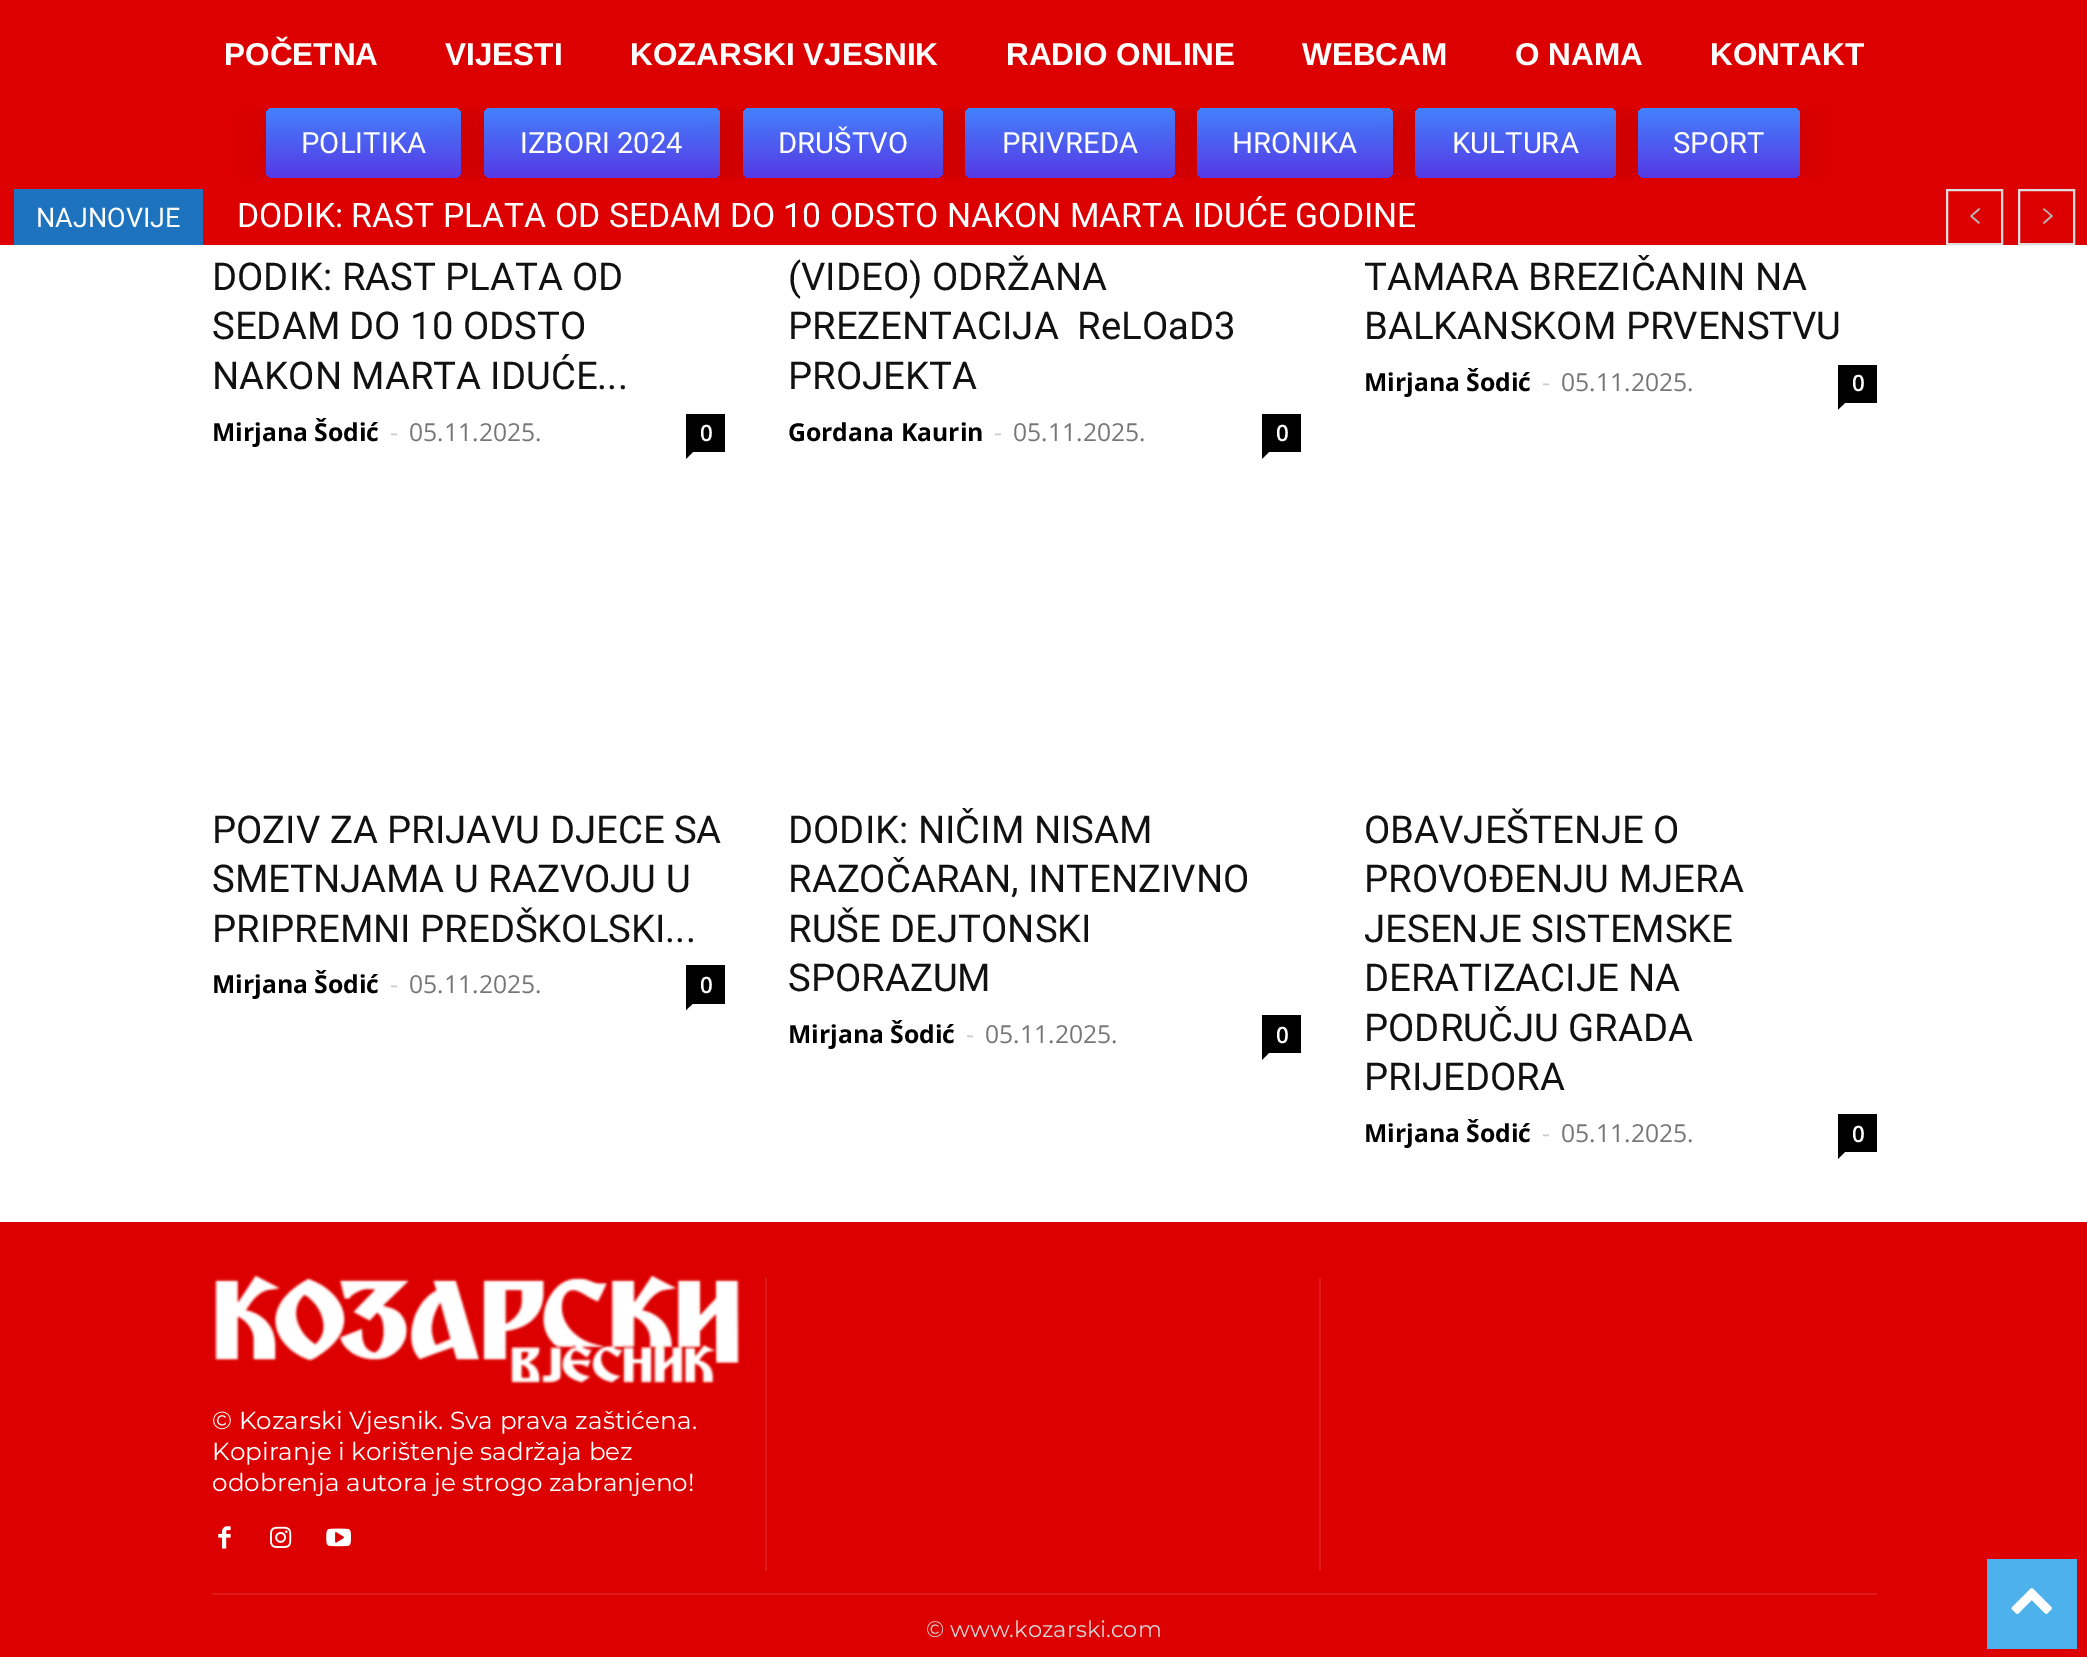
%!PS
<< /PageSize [2087 1657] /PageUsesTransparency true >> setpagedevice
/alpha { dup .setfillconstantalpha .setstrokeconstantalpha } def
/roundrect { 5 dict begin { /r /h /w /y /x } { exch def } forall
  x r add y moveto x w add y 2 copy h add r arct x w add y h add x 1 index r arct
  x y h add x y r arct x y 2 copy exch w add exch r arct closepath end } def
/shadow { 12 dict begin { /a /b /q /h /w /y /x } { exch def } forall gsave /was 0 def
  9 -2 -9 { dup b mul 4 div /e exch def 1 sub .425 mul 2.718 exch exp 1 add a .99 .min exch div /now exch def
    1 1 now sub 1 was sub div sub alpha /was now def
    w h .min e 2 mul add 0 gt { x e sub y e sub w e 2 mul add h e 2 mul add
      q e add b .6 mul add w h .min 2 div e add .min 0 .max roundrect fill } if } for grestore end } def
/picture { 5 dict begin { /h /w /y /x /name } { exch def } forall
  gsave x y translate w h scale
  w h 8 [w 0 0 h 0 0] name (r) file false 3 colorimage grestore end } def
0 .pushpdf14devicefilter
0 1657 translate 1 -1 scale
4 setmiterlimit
1 setgray
0 0 2087 1657 rectfill
0.867 0 0 setrgbcolor
0 108 2087 70 rectfill
0 setgray
266 113 195 69 7 18 0.1 shadow
gsave 266 108 195 70 7 roundrect clip newpath
<< /ShadingType 2 /ColorSpace /DeviceRGB /Coords [363 108 363 178] /Extend [true true] /Function << /FunctionType 2 /Domain [0 1] /C0 [0.267 0.506 0.988] /C1 [0.337 0.224 0.898] /N 1 >> >> shfill grestore
484 113 236 69 7 18 0.1 shadow
gsave 484 108 236 70 7 roundrect clip newpath
<< /ShadingType 2 /ColorSpace /DeviceRGB /Coords [602 108 602 178] /Extend [true true] /Function << /FunctionType 2 /Domain [0 1] /C0 [0.267 0.506 0.988] /C1 [0.337 0.224 0.898] /N 1 >> >> shfill grestore
743 113 200 69 7 18 0.1 shadow
gsave 743 108 200 70 7 roundrect clip newpath
<< /ShadingType 2 /ColorSpace /DeviceRGB /Coords [843 108 843 178] /Extend [true true] /Function << /FunctionType 2 /Domain [0 1] /C0 [0.267 0.506 0.988] /C1 [0.337 0.224 0.898] /N 1 >> >> shfill grestore
965 113 210 69 7 18 0.1 shadow
gsave 965 108 210 70 7 roundrect clip newpath
<< /ShadingType 2 /ColorSpace /DeviceRGB /Coords [1070 108 1070 178] /Extend [true true] /Function << /FunctionType 2 /Domain [0 1] /C0 [0.267 0.506 0.988] /C1 [0.337 0.224 0.898] /N 1 >> >> shfill grestore
1197 113 196 69 7 18 0.1 shadow
gsave 1197 108 196 70 7 roundrect clip newpath
<< /ShadingType 2 /ColorSpace /DeviceRGB /Coords [1295 108 1295 178] /Extend [true true] /Function << /FunctionType 2 /Domain [0 1] /C0 [0.267 0.506 0.988] /C1 [0.337 0.224 0.898] /N 1 >> >> shfill grestore
1415 113 201 69 7 18 0.1 shadow
gsave 1415 108 201 70 7 roundrect clip newpath
<< /ShadingType 2 /ColorSpace /DeviceRGB /Coords [1515 108 1515 178] /Extend [true true] /Function << /FunctionType 2 /Domain [0 1] /C0 [0.267 0.506 0.988] /C1 [0.337 0.224 0.898] /N 1 >> >> shfill grestore
1638 113 162 69 7 18 0.1 shadow
0.867 0 0 setrgbcolor
0 0 2087 108 rectfill
/LiberationSans-Bold [31.5 0 0 -31.5 0 0] selectfont
1 setgray
224 65 moveto (POČETNA) show
445 65 moveto (VIJESTI) show
630 65 moveto (KOZARSKI VJESNIK) show
1006 65 moveto (RADIO ONLINE) show
1302 65 moveto (WEBCAM) show
1515 65 moveto (O NAMA) show
1710 65 moveto (KONTAKT) show
/Roboto-Regular [29.25 0 0 -29.25 0 0] selectfont
301 153 moveto (POLITIKA) show
520 153 moveto (IZBORI 2024) show
778 153 moveto (DRUŠTVO) show
1002 153 moveto (PRIVREDA) show
1232 153 moveto (HRONIKA) show
1452 153 moveto (KULTURA) show
gsave 1638 108 162 70 7 roundrect clip newpath
<< /ShadingType 2 /ColorSpace /DeviceRGB /Coords [1719 108 1719 178] /Extend [true true] /Function << /FunctionType 2 /Domain [0 1] /C0 [0.267 0.506 0.988] /C1 [0.337 0.224 0.898] /N 1 >> >> shfill grestore
1673 153 moveto (SPORT) show
0.867 0 0 setrgbcolor
0 178 2087 67 rectfill
0.118 0.451 0.745 setrgbcolor
14 189 189 56 rectfill
/Roboto-Regular [27 0 0 -27 0 0] selectfont
1 setgray
36 227 moveto (NAJNOVIJE) show
/Roboto-Regular [33.75 0 0 -33.75 0 0] selectfont
237 227 moveto (DODIK: RAST PLATA OD SEDAM DO 10 ODSTO NAKON MARTA IDUĆE GODINE) show
0.863 setgray
2 setlinewidth
1947 190 55 54 rectstroke
(img1.rgb) 1970 208 10 16 picture
2019 190 55 54 rectstroke
(img2.rgb) 2043 208 10 16 picture
/Roboto-Regular [38.25 0 0 -38.25 0 0] selectfont
0.067 setgray
212 290 moveto (DODIK: RAST PLATA OD) show
212 339 moveto (SEDAM DO 10 ODSTO) show
212 389 moveto (NAKON MARTA IDUĆE...) show
/OpenSans-Bold [24.75 0 0 -24.75 0 0] selectfont
0 setgray
212 441 moveto (Mirjana Šodić) show
/OpenSans-Regular [24.75 0 0 -24.75 0 0] selectfont
0.8 setgray
390 441 moveto (-) show
0.463 setgray
409 441 moveto (05.11.2025.) show
0 setgray
686 414 39 38 rectfill
/OpenSans-SemiBold [22.5 0 0 -22.5 0 0] selectfont
1 setgray
700 441 moveto (0) show
0 setgray
newpath 686 452 moveto 693 452 lineto 686 459 lineto closepath fill
/Roboto-Regular [38.25 0 0 -38.25 0 0] selectfont
0.067 setgray
788 290 moveto (\(VIDEO\) ODRŽANA) show
788 339 moveto (PREZENTACIJA  ReLOaD3) show
788 389 moveto (PROJEKTA) show
/OpenSans-Bold [24.75 0 0 -24.75 0 0] selectfont
0 setgray
788 441 moveto (Gordana Kaurin) show
/OpenSans-Regular [24.75 0 0 -24.75 0 0] selectfont
0.8 setgray
994 441 moveto (-) show
0.463 setgray
1013 441 moveto (05.11.2025.) show
0 setgray
1262 414 39 38 rectfill
/OpenSans-SemiBold [22.5 0 0 -22.5 0 0] selectfont
1 setgray
1276 441 moveto (0) show
0 setgray
newpath 1262 452 moveto 1269 452 lineto 1262 459 lineto closepath fill
/Roboto-Regular [38.25 0 0 -38.25 0 0] selectfont
0.067 setgray
1364 290 moveto (TAMARA BREZIČANIN NA) show
1364 339 moveto (BALKANSKOM PRVENSTVU) show
/OpenSans-Bold [24.75 0 0 -24.75 0 0] selectfont
0 setgray
1364 391 moveto (Mirjana Šodić) show
/OpenSans-Regular [24.75 0 0 -24.75 0 0] selectfont
0.8 setgray
1542 391 moveto (-) show
0.463 setgray
1561 391 moveto (05.11.2025.) show
0 setgray
1838 365 39 38 rectfill
/OpenSans-SemiBold [22.5 0 0 -22.5 0 0] selectfont
1 setgray
1852 391 moveto (0) show
0 setgray
newpath 1838 403 moveto 1845 403 lineto 1838 409.5 lineto closepath fill
/Roboto-Regular [38.25 0 0 -38.25 0 0] selectfont
0.067 setgray
212 843 moveto (POZIV ZA PRIJAVU DJECE SA) show
212 892 moveto (SMETNJAMA U RAZVOJU U) show
212 942 moveto (PRIPREMNI PREDŠKOLSKI...) show
/OpenSans-Bold [24.75 0 0 -24.75 0 0] selectfont
0 setgray
212 993 moveto (Mirjana Šodić) show
/OpenSans-Regular [24.75 0 0 -24.75 0 0] selectfont
0.8 setgray
390 993 moveto (-) show
0.463 setgray
409 993 moveto (05.11.2025.) show
0 setgray
686 965 39 39 rectfill
/OpenSans-SemiBold [22.5 0 0 -22.5 0 0] selectfont
1 setgray
700 993 moveto (0) show
0 setgray
newpath 686 1003.5 moveto 693 1003.5 lineto 686 1010 lineto closepath fill
/Roboto-Regular [38.25 0 0 -38.25 0 0] selectfont
0.067 setgray
788 843 moveto (DODIK: NIČIM NISAM) show
788 892 moveto (RAZOČARAN, INTENZIVNO) show
788 942 moveto (RUŠE DEJTONSKI) show
788 991 moveto (SPORAZUM) show
/OpenSans-Bold [24.75 0 0 -24.75 0 0] selectfont
0 setgray
788 1043 moveto (Mirjana Šodić) show
/OpenSans-Regular [24.75 0 0 -24.75 0 0] selectfont
0.8 setgray
966 1043 moveto (-) show
0.463 setgray
985 1043 moveto (05.11.2025.) show
0 setgray
1262 1015 39 38 rectfill
/OpenSans-SemiBold [22.5 0 0 -22.5 0 0] selectfont
1 setgray
1276 1043 moveto (0) show
0 setgray
newpath 1262 1053 moveto 1269 1053 lineto 1262 1060 lineto closepath fill
/Roboto-Regular [38.25 0 0 -38.25 0 0] selectfont
0.067 setgray
1364 843 moveto (OBAVJEŠTENJE O) show
1364 892 moveto (PROVOĐENJU MJERA) show
1364 942 moveto (JESENJE SISTEMSKE) show
1364 991 moveto (DERATIZACIJE NA) show
1364 1041 moveto (PODRUČJU GRADA) show
1364 1090 moveto (PRIJEDORA) show
/OpenSans-Bold [24.75 0 0 -24.75 0 0] selectfont
0 setgray
1364 1142 moveto (Mirjana Šodić) show
/OpenSans-Regular [24.75 0 0 -24.75 0 0] selectfont
0.8 setgray
1542 1142 moveto (-) show
0.463 setgray
1561 1142 moveto (05.11.2025.) show
0 setgray
1838 1114 39 38 rectfill
/OpenSans-SemiBold [22.5 0 0 -22.5 0 0] selectfont
1 setgray
1852 1142 moveto (0) show
0 setgray
newpath 1838 1152 moveto 1845 1152 lineto 1838 1159 lineto closepath fill
0.867 0 0 setrgbcolor
0 1222 2087 435 rectfill
0.878 0.102 0.102 setrgbcolor
212 1593 1665 2 rectfill
765 1278 2 293 rectfill
(img3.rgb) 214 1274 526 110 picture
/Montserrat-Regular [24.75 0 0 -24.75 0 0] selectfont
1 setgray
212 1429 moveto (© Kozarski Vjesnik. Sva prava zaštićena.) show
212 1460 moveto (Kopiranje i korištenje sadržaja bez) show
212 1491 moveto (odobrenja autora je strogo zabranjeno!) show
(img4.rgb) 218 1526 13 23 picture
(img5.rgb) 270 1526 22 22 picture
(img6.rgb) 326 1528 25 19 picture
0.878 0.102 0.102 setrgbcolor
1319 1278 2 293 rectfill
/Montserrat-Regular [22.5 0 0 -22.5 0 0] selectfont
0.847 setgray
926 1637 moveto (© www.kozarski.com) show
0.302 0.698 0.925 setrgbcolor
1987 1559 90 90 rectfill
(img7.rgb) 2011 1588 41 26 picture
.poppdf14devicefilter showpage
